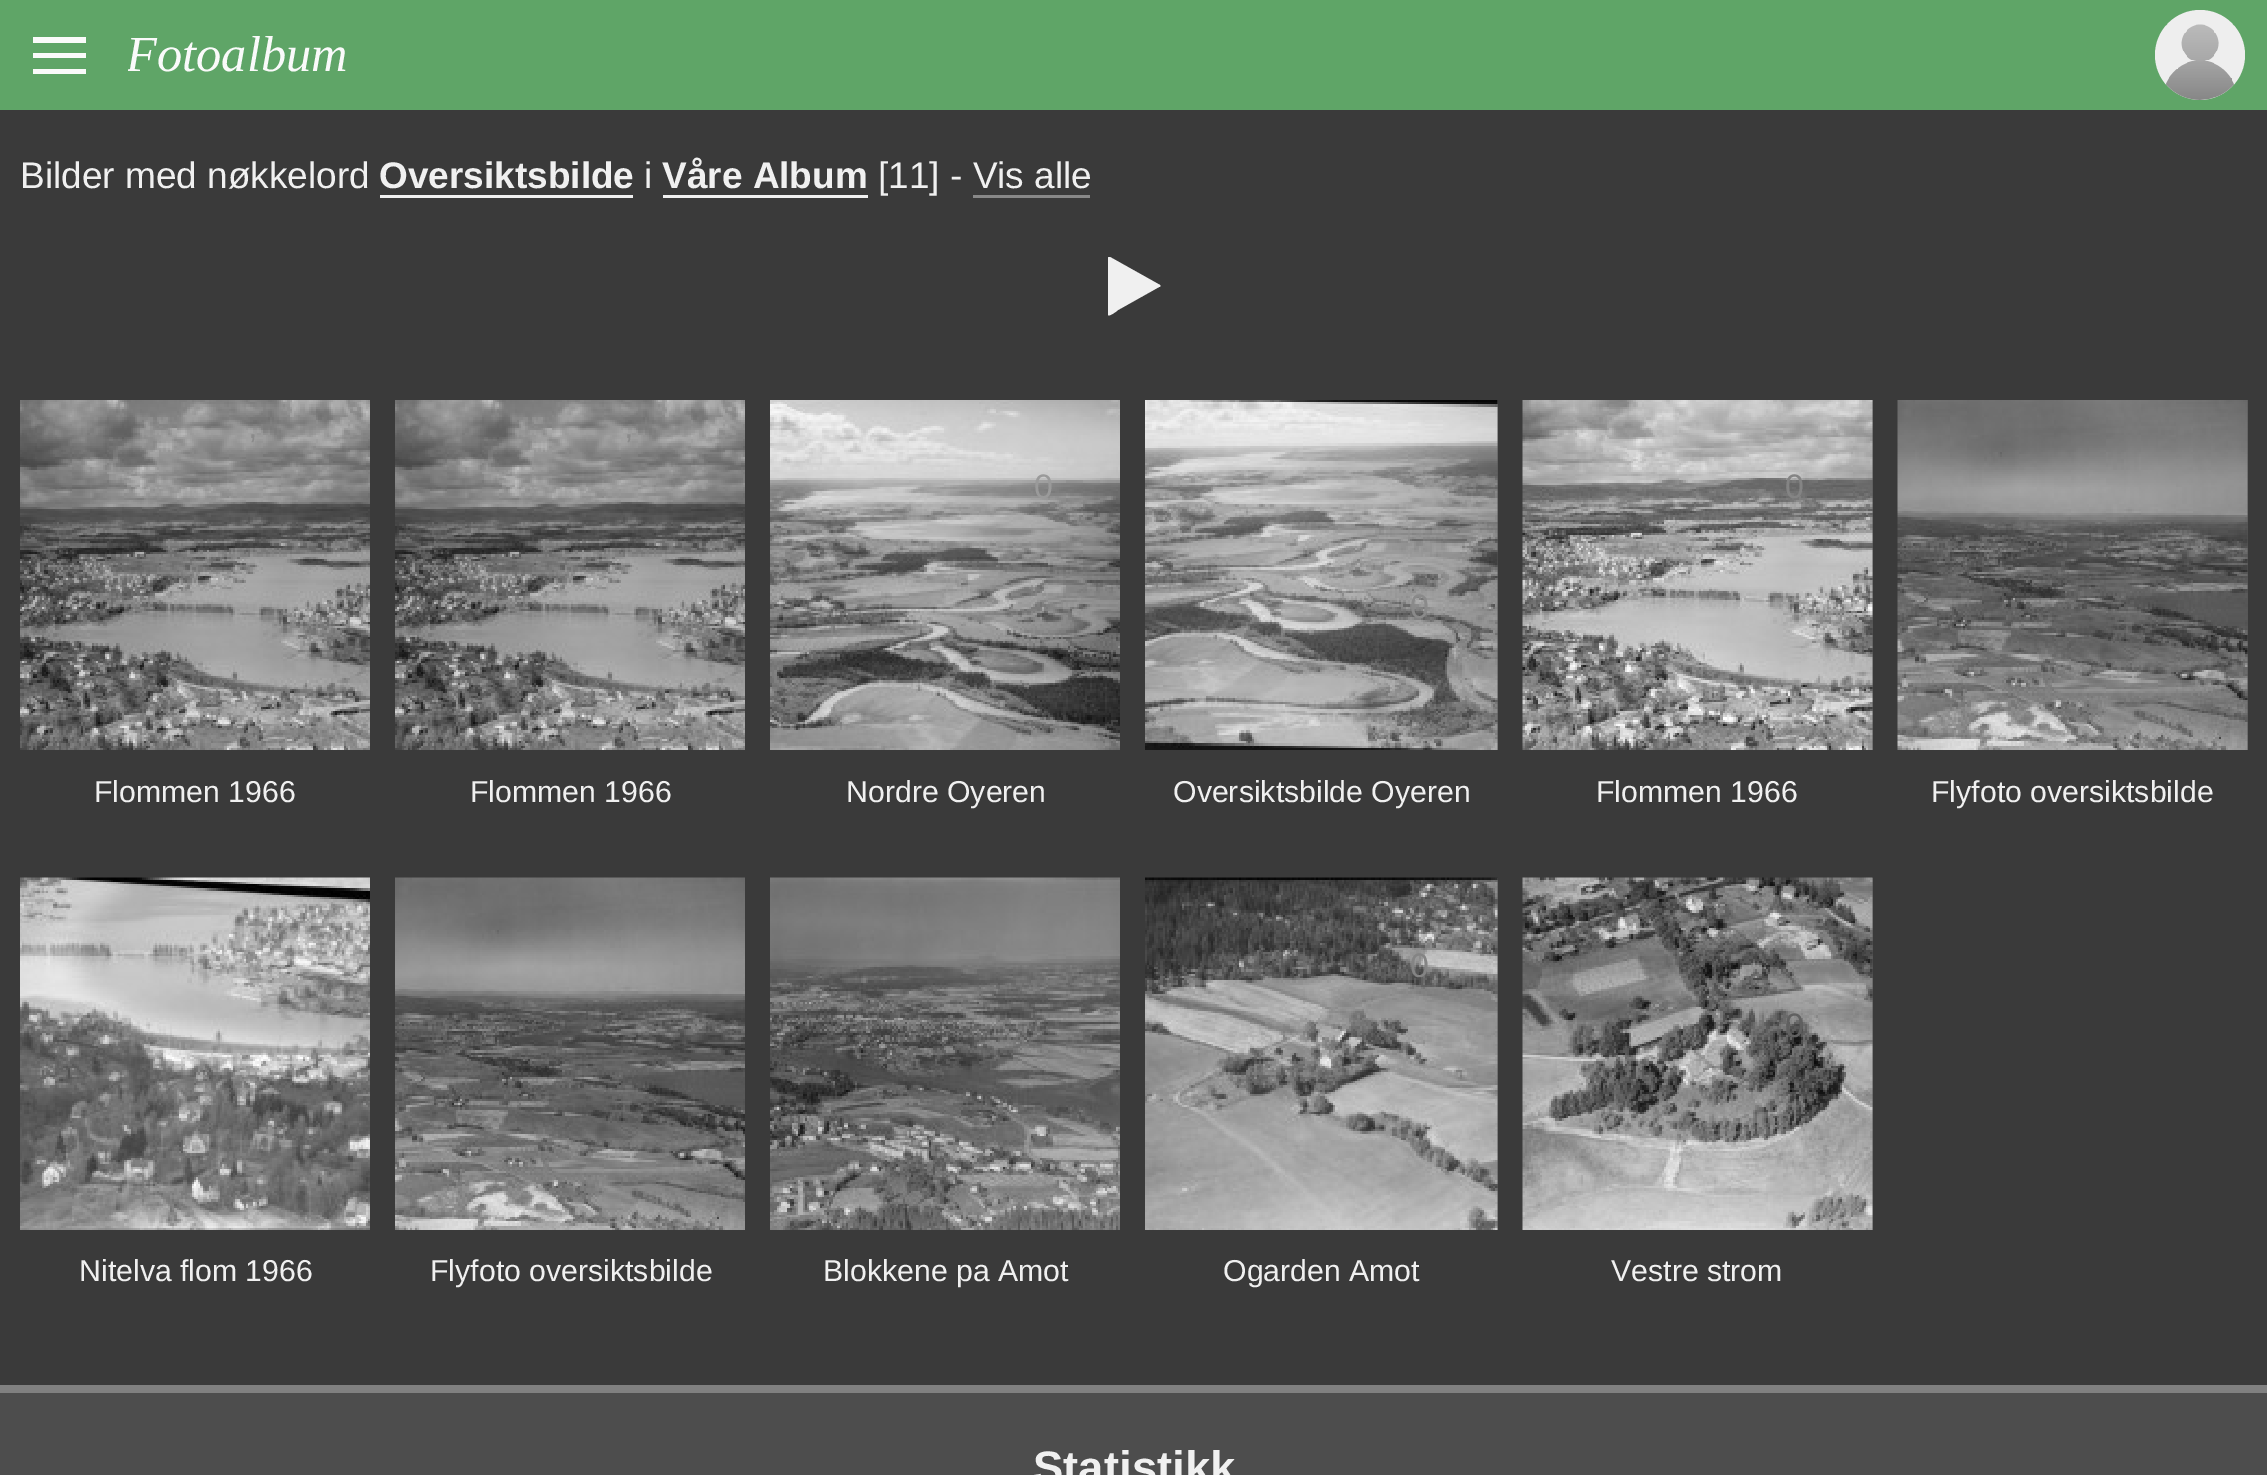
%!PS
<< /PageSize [2267 1475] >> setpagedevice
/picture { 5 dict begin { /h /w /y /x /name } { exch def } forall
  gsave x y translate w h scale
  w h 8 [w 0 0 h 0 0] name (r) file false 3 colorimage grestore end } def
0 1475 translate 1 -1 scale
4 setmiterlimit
0.227 setgray
0 0 2267 1475 rectfill
0.373 0.647 0.404 setrgbcolor
0 0 2267 110 rectfill
0.98 setgray
newpath 33 37 moveto 86 37 lineto 86 43 lineto 33 43 lineto closepath 33 53 moveto 86 53 lineto 86 58 lineto 33 58 lineto closepath 33 69 moveto 86 69 lineto 86 74 lineto 33 74 lineto closepath fill
gsave
128 28 2002 57 rectclip
/LiberationSerif-Italic [50.5 0 0 -50.5 0 0] selectfont
126 71 moveto (Fotoalbum) show
grestore
0.933 setgray
newpath 2200 55 45 0 360 arc closepath fill
(img1.rgb) 2166 24 68 76 picture
/LiberationSans-Regular [37 0 0 -37 0 0] selectfont
0.941 setgray
20 188 moveto (Bilder med nøkkelord) show
/LiberationSans-Bold [37 0 0 -37 0 0] selectfont
379 188 moveto (Oversiktsbilde) show
380 195 253 3 rectfill
/LiberationSans-Regular [37 0 0 -37 0 0] selectfont
644 188 moveto (i) show
/LiberationSans-Bold [37 0 0 -37 0 0] selectfont
662 188 moveto (Våre Album) show
663 195 205 3 rectfill
/LiberationSans-Regular [37 0 0 -37 0 0] selectfont
878 188 moveto ([11] - Vis alle) show
0.533 setgray
973 195 117 3 rectfill
0.941 setgray
newpath 1159 287 moveto 1118 310 lineto 1117 311 1109 317 1108 315 curveto 1108 258 lineto 1108 257 1109 257 1110 257 curveto 1160 285 lineto 1161 286 1160 287 1159 287 curveto closepath fill
(img2.rgb) 20 400 350 350 picture
/LiberationSans-Regular [34 0 0 -34 0 0] selectfont
0.541 setgray
248 438 moveto (,) show
/LiberationSans-Regular [30.25 0 0 -30.25 0 0] selectfont
0.941 setgray
94 802 moveto (Flommen 1966) show
(img2.rgb) 395 400 350 350 picture
/LiberationSans-Regular [34 0 0 -34 0 0] selectfont
0.541 setgray
624 438 moveto (,) show
/LiberationSans-Regular [30.25 0 0 -30.25 0 0] selectfont
0.941 setgray
470 802 moveto (Flommen 1966) show
(img3.rgb) 770 400 350 350 picture
/LiberationSans-Regular [34 0 0 -34 0 0] selectfont
0.604 setgray
1034 498 moveto (0) show
/LiberationSans-Regular [30.25 0 0 -30.25 0 0] selectfont
0.941 setgray
846 802 moveto (Nordre Oyeren) show
0.333 setgray
1497 400 1 350 rectfill
(img4.rgb) 1145 400 353 350 picture
/LiberationSans-Regular [34 0 0 -34 0 0] selectfont
0.541 setgray
1410 618 moveto (0) show
/LiberationSans-Regular [30.25 0 0 -30.25 0 0] selectfont
0.941 setgray
1173 802 moveto (Oversiktsbilde Oyeren) show
0.333 setgray
1872 400 1 350 rectfill
(img5.rgb) 1522 400 351 350 picture
/LiberationSans-Regular [34 0 0 -34 0 0] selectfont
0.518 setgray
1785 498 moveto (0) show
/LiberationSans-Regular [30.25 0 0 -30.25 0 0] selectfont
0.941 setgray
1596 802 moveto (Flommen 1966) show
0.333 setgray
2247 400 1 350 rectfill
(img6.rgb) 1897 400 351 350 picture
0.941 setgray
1931 802 moveto (Flyfoto oversiktsbilde) show
(img7.rgb) 20 877 350 353 picture
79 1281 moveto (Nitelva flom 1966) show
(img8.rgb) 395 877 350 353 picture
430 1281 moveto (Flyfoto oversiktsbilde) show
(img9.rgb) 770 877 350 353 picture
823 1281 moveto (Blokkene pa Amot) show
0.333 setgray
1497 878 1 352 rectfill
(img10.rgb) 1145 877 353 353 picture
/LiberationSans-Regular [34 0 0 -34 0 0] selectfont
0.518 setgray
1410 977 moveto (0) show
/LiberationSans-Regular [30.25 0 0 -30.25 0 0] selectfont
0.941 setgray
1223 1281 moveto (Ogarden Amot) show
0.333 setgray
1872 878 1 352 rectfill
(img11.rgb) 1522 877 351 353 picture
/LiberationSans-Regular [34 0 0 -34 0 0] selectfont
0.376 setgray
1785 1037 moveto (0) show
/LiberationSans-Regular [30.25 0 0 -30.25 0 0] selectfont
0.941 setgray
1611 1281 moveto (Vestre strom) show
0.302 setgray
0 1393 2267 82 rectfill
0.502 setgray
0 1385 2267 8 rectfill
/LiberationSans-Bold [45.5 0 0 -45.5 0 0] selectfont
0.941 setgray
1033 1483 moveto (Statistikk) show
showpage
